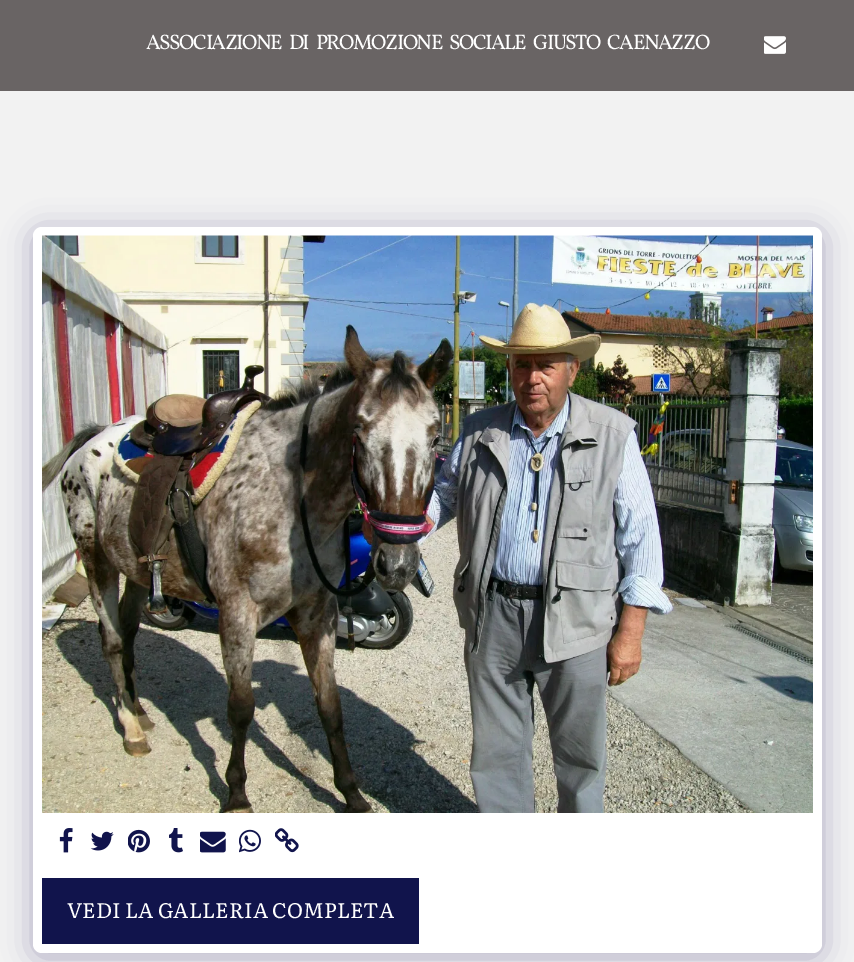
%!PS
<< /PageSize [854 962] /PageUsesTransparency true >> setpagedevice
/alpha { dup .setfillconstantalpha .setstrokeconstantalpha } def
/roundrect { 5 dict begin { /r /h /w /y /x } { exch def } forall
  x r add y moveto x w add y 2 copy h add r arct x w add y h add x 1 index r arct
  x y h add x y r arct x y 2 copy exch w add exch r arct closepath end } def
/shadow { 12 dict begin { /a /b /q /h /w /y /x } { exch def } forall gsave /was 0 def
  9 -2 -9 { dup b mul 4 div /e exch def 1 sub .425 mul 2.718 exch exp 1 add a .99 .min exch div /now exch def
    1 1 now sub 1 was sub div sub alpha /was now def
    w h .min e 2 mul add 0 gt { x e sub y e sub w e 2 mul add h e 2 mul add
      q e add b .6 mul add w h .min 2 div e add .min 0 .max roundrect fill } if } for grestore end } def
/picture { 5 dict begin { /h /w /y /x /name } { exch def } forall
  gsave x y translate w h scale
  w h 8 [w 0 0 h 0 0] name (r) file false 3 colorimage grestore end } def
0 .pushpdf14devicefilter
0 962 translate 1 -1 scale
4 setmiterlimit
0.949 setgray
0 0 854 962 rectfill
0.412 0.392 0.392 setrgbcolor
0 0 854 91 rectfill
/VollkornSC-Regular [21 0 0 -21 0 0] selectfont
1 setgray
146 49 moveto 4.5 0 32 -1.5 0 (ASSOCIAZIONE DI PROMOZIONE SOCIALE GIUSTO CAENAZZO) awidthshow
(img1.rgb) 764 36 22 18 picture
0.302 0.247 0.478 setrgbcolor
33 231 789 726 9 15 0.4 shadow
1 setgray
33 227 789 726 9 roundrect fill
(img2.rgb) 42 235 771 578 picture
(img3.rgb) 59 828 14 25 picture
(img4.rgb) 90 831 24 20 picture
(img5.rgb) 128 829 22 24 picture
(img6.rgb) 169 828 14 25 picture
(img7.rgb) 200 831 26 22 picture
(img8.rgb) 239 829 22 24 picture
(img9.rgb) 275 828 24 25 picture
0.067 0.078 0.298 setrgbcolor
42 878 377 66 rectfill
/Literata-Regular [21 0 0 -21 0 0] selectfont
1 setgray
67 918 moveto (VEDI LA GALLERIA COMPLETA) show
.poppdf14devicefilter showpage
